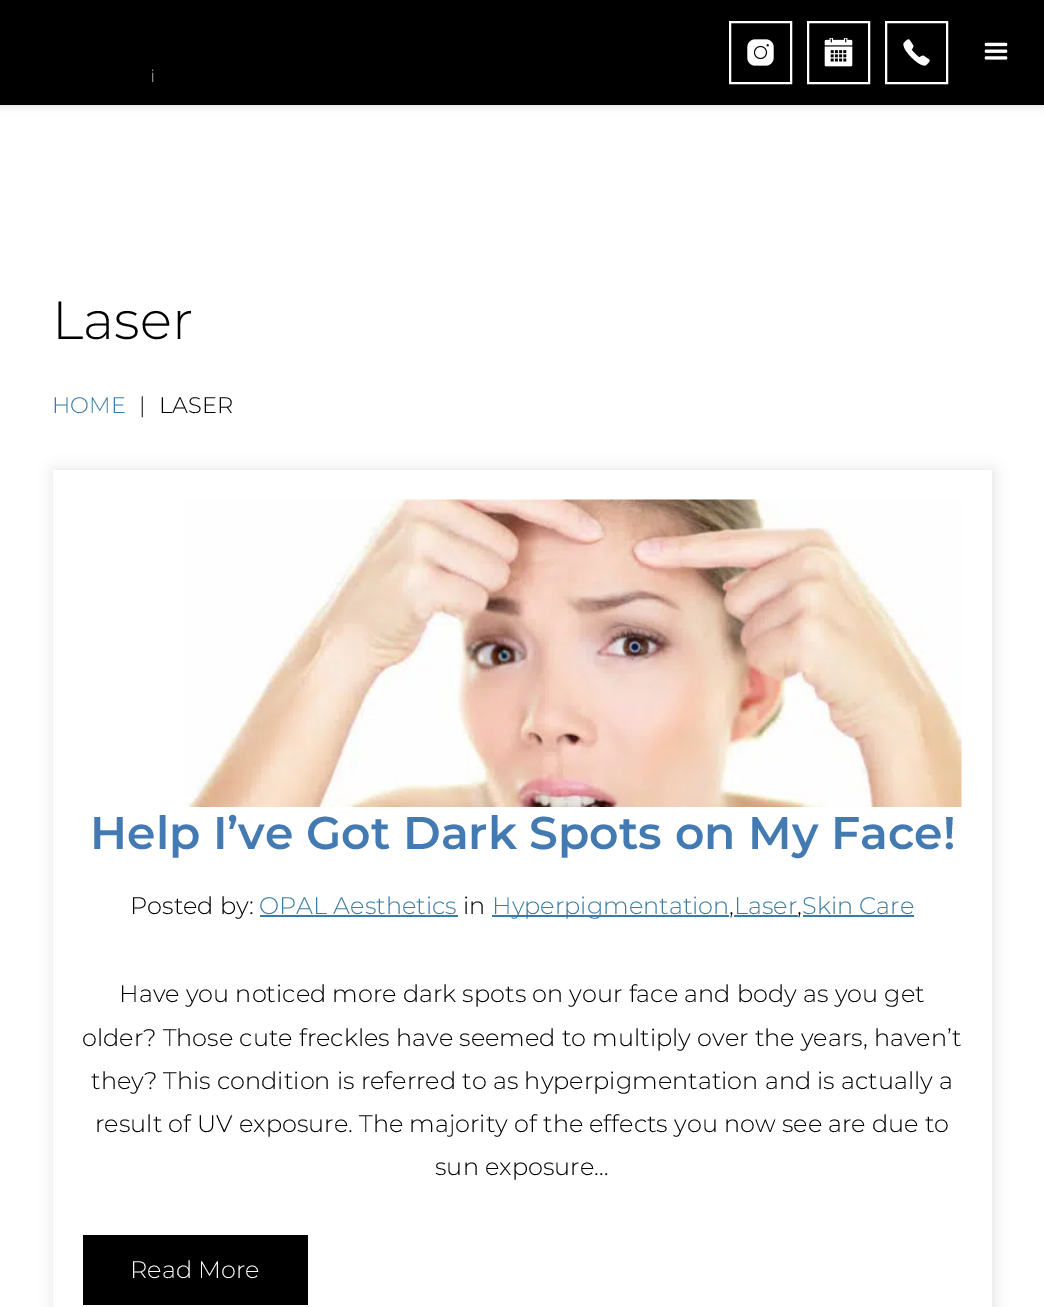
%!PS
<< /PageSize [1044 1307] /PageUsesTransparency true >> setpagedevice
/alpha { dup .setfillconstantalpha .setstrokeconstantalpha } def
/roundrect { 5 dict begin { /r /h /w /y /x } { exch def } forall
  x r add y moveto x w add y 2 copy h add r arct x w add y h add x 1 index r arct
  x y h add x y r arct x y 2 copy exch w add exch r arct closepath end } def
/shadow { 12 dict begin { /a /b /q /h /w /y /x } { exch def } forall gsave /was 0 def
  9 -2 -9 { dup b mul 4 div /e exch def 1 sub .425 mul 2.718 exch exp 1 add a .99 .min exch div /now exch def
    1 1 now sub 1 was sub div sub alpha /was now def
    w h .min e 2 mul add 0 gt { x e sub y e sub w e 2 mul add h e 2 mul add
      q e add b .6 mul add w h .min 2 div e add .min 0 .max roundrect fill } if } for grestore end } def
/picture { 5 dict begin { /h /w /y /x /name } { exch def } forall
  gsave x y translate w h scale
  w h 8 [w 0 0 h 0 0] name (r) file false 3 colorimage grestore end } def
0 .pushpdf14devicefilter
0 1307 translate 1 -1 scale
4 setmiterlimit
1 setgray
0 0 1044 1307 rectfill
0 setgray
0 0 1044 105 0 5 0.17 shadow
0 0 1044 105 rectfill
(img1.rgb) 152 69 2 13 picture
1 setgray
2 setlinewidth
730 22 61 61 rectstroke
(img2.rgb) 747 39 27 27 picture
808 22 61 61 rectstroke
(img3.rgb) 824 38 29 29 picture
886 22 61 61 rectstroke
(img4.rgb) 903 39 27 27 picture
(img5.rgb) 984 42 24 18 picture
/Montserrat-Light [53.5 0 0 -53.5 0 0] selectfont
0 setgray
52 339 moveto (Laser) show
/Montserrat-Light [22.5 0 0 -22.5 0 0] selectfont
0.224 0.482 0.647 setrgbcolor
52 413 moveto (HOME) show
0 setgray
139 413 moveto (|) show
159 413 moveto (LASER) show
gsave
newpath 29 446 moveto 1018 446 lineto 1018 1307 lineto 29 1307 lineto closepath 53 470 moveto 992 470 lineto 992 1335 lineto 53 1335 lineto closepath eoclip newpath
0.267 0.267 0.275 setrgbcolor
54 471 939 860 0 8 0.17 shadow
grestore
(img6.rgb) 184 499 778 308 picture
/Montserrat-SemiBold [45.75 0 0 -45.75 0 0] selectfont
0.263 0.478 0.698 setrgbcolor
90 849 moveto (Help I’ve Got Dark Spots on My Face!) show
/Montserrat-Light [24 0 0 -24 0 0] selectfont
0 setgray
130 914 moveto (Posted by:) show
0.224 0.482 0.647 setrgbcolor
259 914 moveto (OPAL Aesthetics) show
260 915 198 2 rectfill
0 setgray
463 914 moveto (in) show
0.224 0.482 0.647 setrgbcolor
492 915 237 2 rectfill
492 914 moveto (Hyperpigmentation) show
0 setgray
729 914 moveto (,) show
0.224 0.482 0.647 setrgbcolor
734 914 moveto (Laser) show
734 915 64 2 rectfill
0 setgray
797 914 moveto (,) show
0.224 0.482 0.647 setrgbcolor
802 914 moveto (Skin Care) show
803 915 111 2 rectfill
0 setgray
119 1002 moveto (Have you noticed more dark spots on your face and body as you get) show
82 1046 moveto (older? Those cute freckles have seemed to multiply over the years, haven’t) show
91 1089 moveto (they? This condition is referred to as hyperpigmentation and is actually a) show
95 1132 moveto (result of UV exposure. The majority of the effects you now see are due to) show
435 1175 moveto (sun exposure…) show
83 1235 225 70 rectfill
1 setgray
130 1278 moveto (Read More) show
.poppdf14devicefilter showpage
